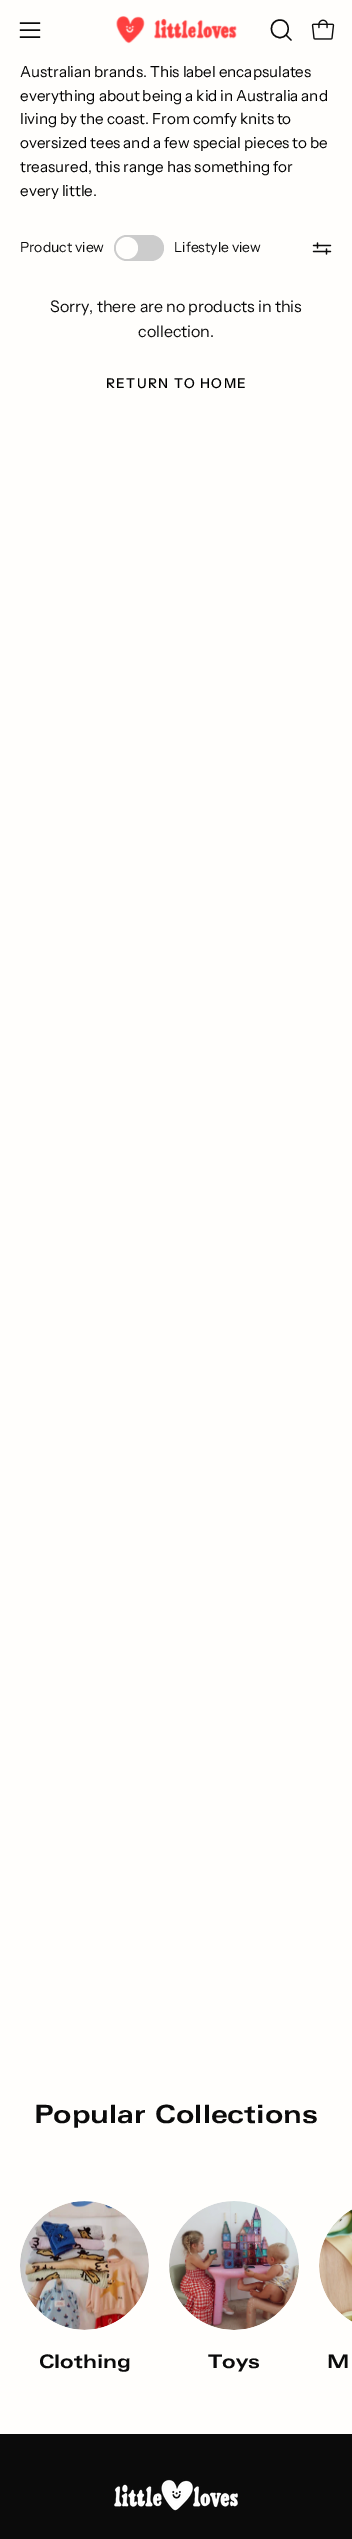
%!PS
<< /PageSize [352 2539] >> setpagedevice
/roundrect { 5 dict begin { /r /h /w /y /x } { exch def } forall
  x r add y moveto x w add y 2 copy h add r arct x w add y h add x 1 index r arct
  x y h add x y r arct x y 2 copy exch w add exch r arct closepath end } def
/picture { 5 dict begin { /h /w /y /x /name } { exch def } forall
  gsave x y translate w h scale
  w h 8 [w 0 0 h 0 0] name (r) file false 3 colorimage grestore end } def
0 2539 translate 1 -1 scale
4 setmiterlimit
1 0.996 0.988 setrgbcolor
0 0 352 2539 rectfill
0.043 setgray
1.5 setlinewidth
1 setlinecap
1 setlinejoin
newpath 20.5 30 moveto 39.5 30 lineto 20.5 23 moveto 39.5 23 lineto 20.5 37 moveto 39.5 37 lineto stroke
(img1.rgb) 116 16 121 28 picture
1.4 setlinewidth
newpath 280 37.5 moveto 291 37.5 291 20 280 20 curveto 268.5 20 268.5 37.5 280 37.5 curveto closepath 286 35 moveto 291 40 lineto stroke
(img2.rgb) 311 19 24 21 picture
/InstrumentSans-Regular [15.2 0 0 -15.2 0 0] selectfont
0 setgray
20 77 moveto (Australian brands. This label encapsulates) show
20 101 moveto (everything about being a kid in Australia and) show
20 124 moveto (living by the coast. From comfy knits to) show
20 148 moveto (oversized tees and a few special pieces to be) show
20 172 moveto (treasured, this range has something for) show
20 196 moveto (every little.) show
/InstrumentSans-Regular [14 0 0 -14 0 0] selectfont
0.043 setgray
20 252 moveto (Product view) show
0.8 setgray
114 235 50 26 13 roundrect fill
1 0.996 0.988 setrgbcolor
newpath 127 248 11 0 360 arc closepath fill
0.043 setgray
174 252 moveto (Lifestyle view) show
(img3.rgb) 312 242 20 13 picture
/InstrumentSans-Regular [16 0 0 -16 0 0] selectfont
50 312 moveto (Sorry, there are no products in this) show
138 337 moveto (collection.) show
/InstrumentSans-Medium [13.6 0 0 -13.6 0 0] selectfont
0 setgray
106 388 moveto 1.4 0 (RETURN TO HOME) ashow
/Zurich-Bold [25.25 0 0 -25.25 0 0] selectfont
0.043 setgray
34 2123 moveto (Popular Collections) show
(img4.rgb) 20 2201 129 129 picture
/Zurich-Bold [18.75 0 0 -18.75 0 0] selectfont
39 2368 moveto (Clothing) show
(img5.rgb) 169 2201 130 129 picture
208 2368 moveto (Toys) show
(img6.rgb) 319 2209 33 113 picture
327 2368 moveto (M) show
0 2434 352 105 rectfill
(img7.rgb) 114 2479 124 32 picture
showpage
